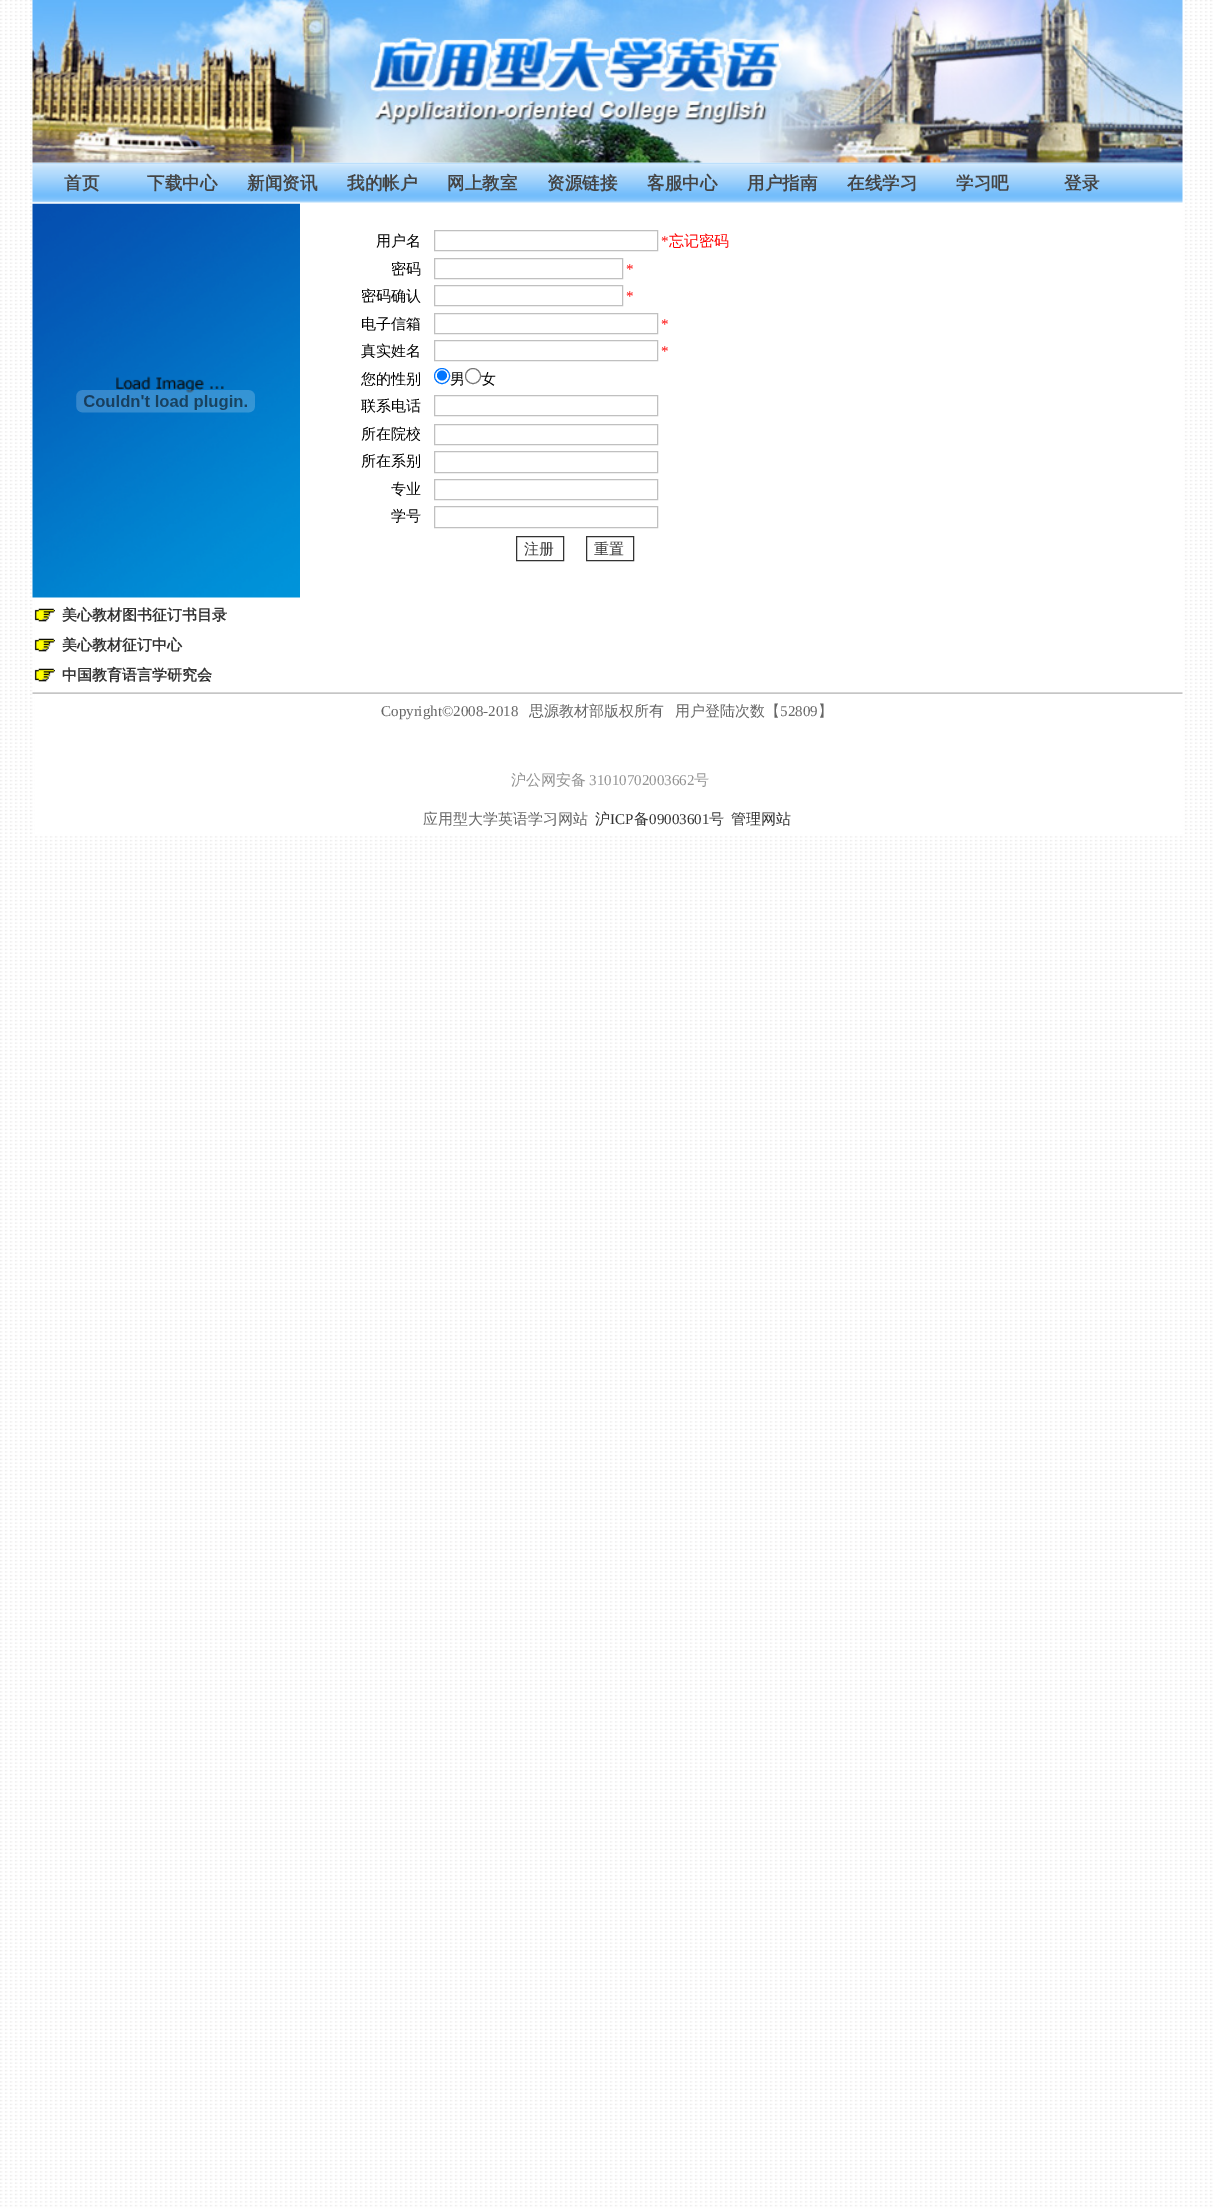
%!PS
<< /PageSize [1213 2207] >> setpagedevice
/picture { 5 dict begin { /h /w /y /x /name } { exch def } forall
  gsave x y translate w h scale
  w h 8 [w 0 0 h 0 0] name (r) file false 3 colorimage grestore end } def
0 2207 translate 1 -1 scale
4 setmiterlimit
1 setgray
0 0 1213 2207 rectfill
(img1.rgb) 0 0 1213 2207 picture
35 0 1148 834 rectfill
(img3.rgb) 32 162 1151 41 picture
(img2.rgb) 32 0 1151 163 picture
/WenQuanYiZenHei-Bold [17.5 0 0 -17.5 0 0] selectfont
0.267 setgray
64 189 moveto (首页) show
147 189 moveto (下载中心) show
247 189 moveto (新闻资讯) show
347 189 moveto (我的帐户) show
447 189 moveto (网上教室) show
547 189 moveto (资源链接) show
647 189 moveto (客服中心) show
747 189 moveto (用户指南) show
847 189 moveto (在线学习) show
956 189 moveto (学习吧) show
1064 189 moveto (登录) show
/WenQuanYiZenHei-Medium [15 0 0 -15 0 0] selectfont
0 setgray
376 246 moveto (用户名) show
0.753 setgray
434.5 230.5 223 20 rectstroke
/LiberationSerif-Regular [15 0 0 -15 0 0] selectfont
1 0 0 setrgbcolor
661 246 moveto (*) show
/WenQuanYiZenHei-Medium [15 0 0 -15 0 0] selectfont
669 246 moveto (忘记密码) show
0 setgray
391 274 moveto (密码) show
0.753 setgray
434.5 258.5 188 20 rectstroke
/LiberationSerif-Regular [15 0 0 -15 0 0] selectfont
1 0 0 setrgbcolor
626 274 moveto (*) show
/WenQuanYiZenHei-Medium [15 0 0 -15 0 0] selectfont
0 setgray
361 301 moveto (密码确认) show
0.753 setgray
434.5 285.5 188 20 rectstroke
/LiberationSerif-Regular [15 0 0 -15 0 0] selectfont
1 0 0 setrgbcolor
626 301 moveto (*) show
/WenQuanYiZenHei-Medium [15 0 0 -15 0 0] selectfont
0 setgray
361 329 moveto (电子信箱) show
0.753 setgray
434.5 313.5 223 20 rectstroke
/LiberationSerif-Regular [15 0 0 -15 0 0] selectfont
1 0 0 setrgbcolor
661 329 moveto (*) show
/WenQuanYiZenHei-Medium [15 0 0 -15 0 0] selectfont
0 setgray
361 356 moveto (真实姓名) show
0.753 setgray
434.5 340.5 223 20 rectstroke
/LiberationSerif-Regular [15 0 0 -15 0 0] selectfont
1 0 0 setrgbcolor
661 356 moveto (*) show
/WenQuanYiZenHei-Medium [15 0 0 -15 0 0] selectfont
0 setgray
361 384 moveto (您的性别) show
0 0.459 1 setrgbcolor
newpath 442 376 7.5 0 360 arc closepath stroke
newpath 442 375.5 5 0 360 arc closepath fill
0 setgray
450 384 moveto (男) show
0.463 setgray
newpath 473 376 7.5 0 360 arc closepath stroke
0 setgray
481 384 moveto (女) show
361 411 moveto (联系电话) show
0.753 setgray
434.5 395.5 223 20 rectstroke
0 setgray
361 439 moveto (所在院校) show
0.753 setgray
434.5 424.5 223 20 rectstroke
0 setgray
361 466 moveto (所在系别) show
0.753 setgray
434.5 451.5 223 21 rectstroke
0 setgray
391 494 moveto (专业) show
0.753 setgray
434.5 479.5 223 20 rectstroke
0 setgray
391 521 moveto (学号) show
0.753 setgray
434.5 506.5 223 21 rectstroke
0.2 setgray
516.5 536.5 47 24 rectstroke
524 554 moveto (注册) show
586.5 536.5 47 24 rectstroke
594 554 moveto (重置) show
(img4.rgb) 32 202 268 396 picture
(img5.rgb) 76 390 179 23 picture
(img6.rgb) 34 608 21 14 picture
/WenQuanYiZenHei-Bold [15 0 0 -15 0 0] selectfont
62 620 moveto (美心教材图书征订书目录) show
(img6.rgb) 34 638 21 14 picture
62 650 moveto (美心教材征订中心) show
(img6.rgb) 34 668 21 14 picture
62 680 moveto (中国教育语言学研究会) show
(img7.rgb) 32 692 1151 2 picture
/LiberationSerif-Regular [15 0 0 -15 0 0] selectfont
0.4 setgray
381 716 moveto (Copyright©2008-2018) show
/WenQuanYiZenHei-Medium [15 0 0 -15 0 0] selectfont
529 716 moveto (思源教材部版权所有) show
675 716 moveto (用户登陆次数【) show
/LiberationSerif-Regular [15 0 0 -15 0 0] selectfont
780 716 moveto (52809) show
/WenQuanYiZenHei-Medium [15 0 0 -15 0 0] selectfont
818 716 moveto (】) show
0.576 setgray
511 785 moveto (沪公网安备) show
/LiberationSerif-Regular [15 0 0 -15 0 0] selectfont
589 785 moveto (31010702003662) show
/WenQuanYiZenHei-Medium [15 0 0 -15 0 0] selectfont
694 785 moveto (号) show
0.4 setgray
423 824 moveto (应用型大学英语学习网站) show
0.2 setgray
595 824 moveto (沪) show
/LiberationSerif-Regular [15 0 0 -15 0 0] selectfont
610 824 moveto (ICP) show
/WenQuanYiZenHei-Medium [15 0 0 -15 0 0] selectfont
634 824 moveto (备) show
/LiberationSerif-Regular [15 0 0 -15 0 0] selectfont
649 824 moveto (09003601) show
/WenQuanYiZenHei-Medium [15 0 0 -15 0 0] selectfont
709 824 moveto (号) show
731 824 moveto (管理网站) show
showpage
